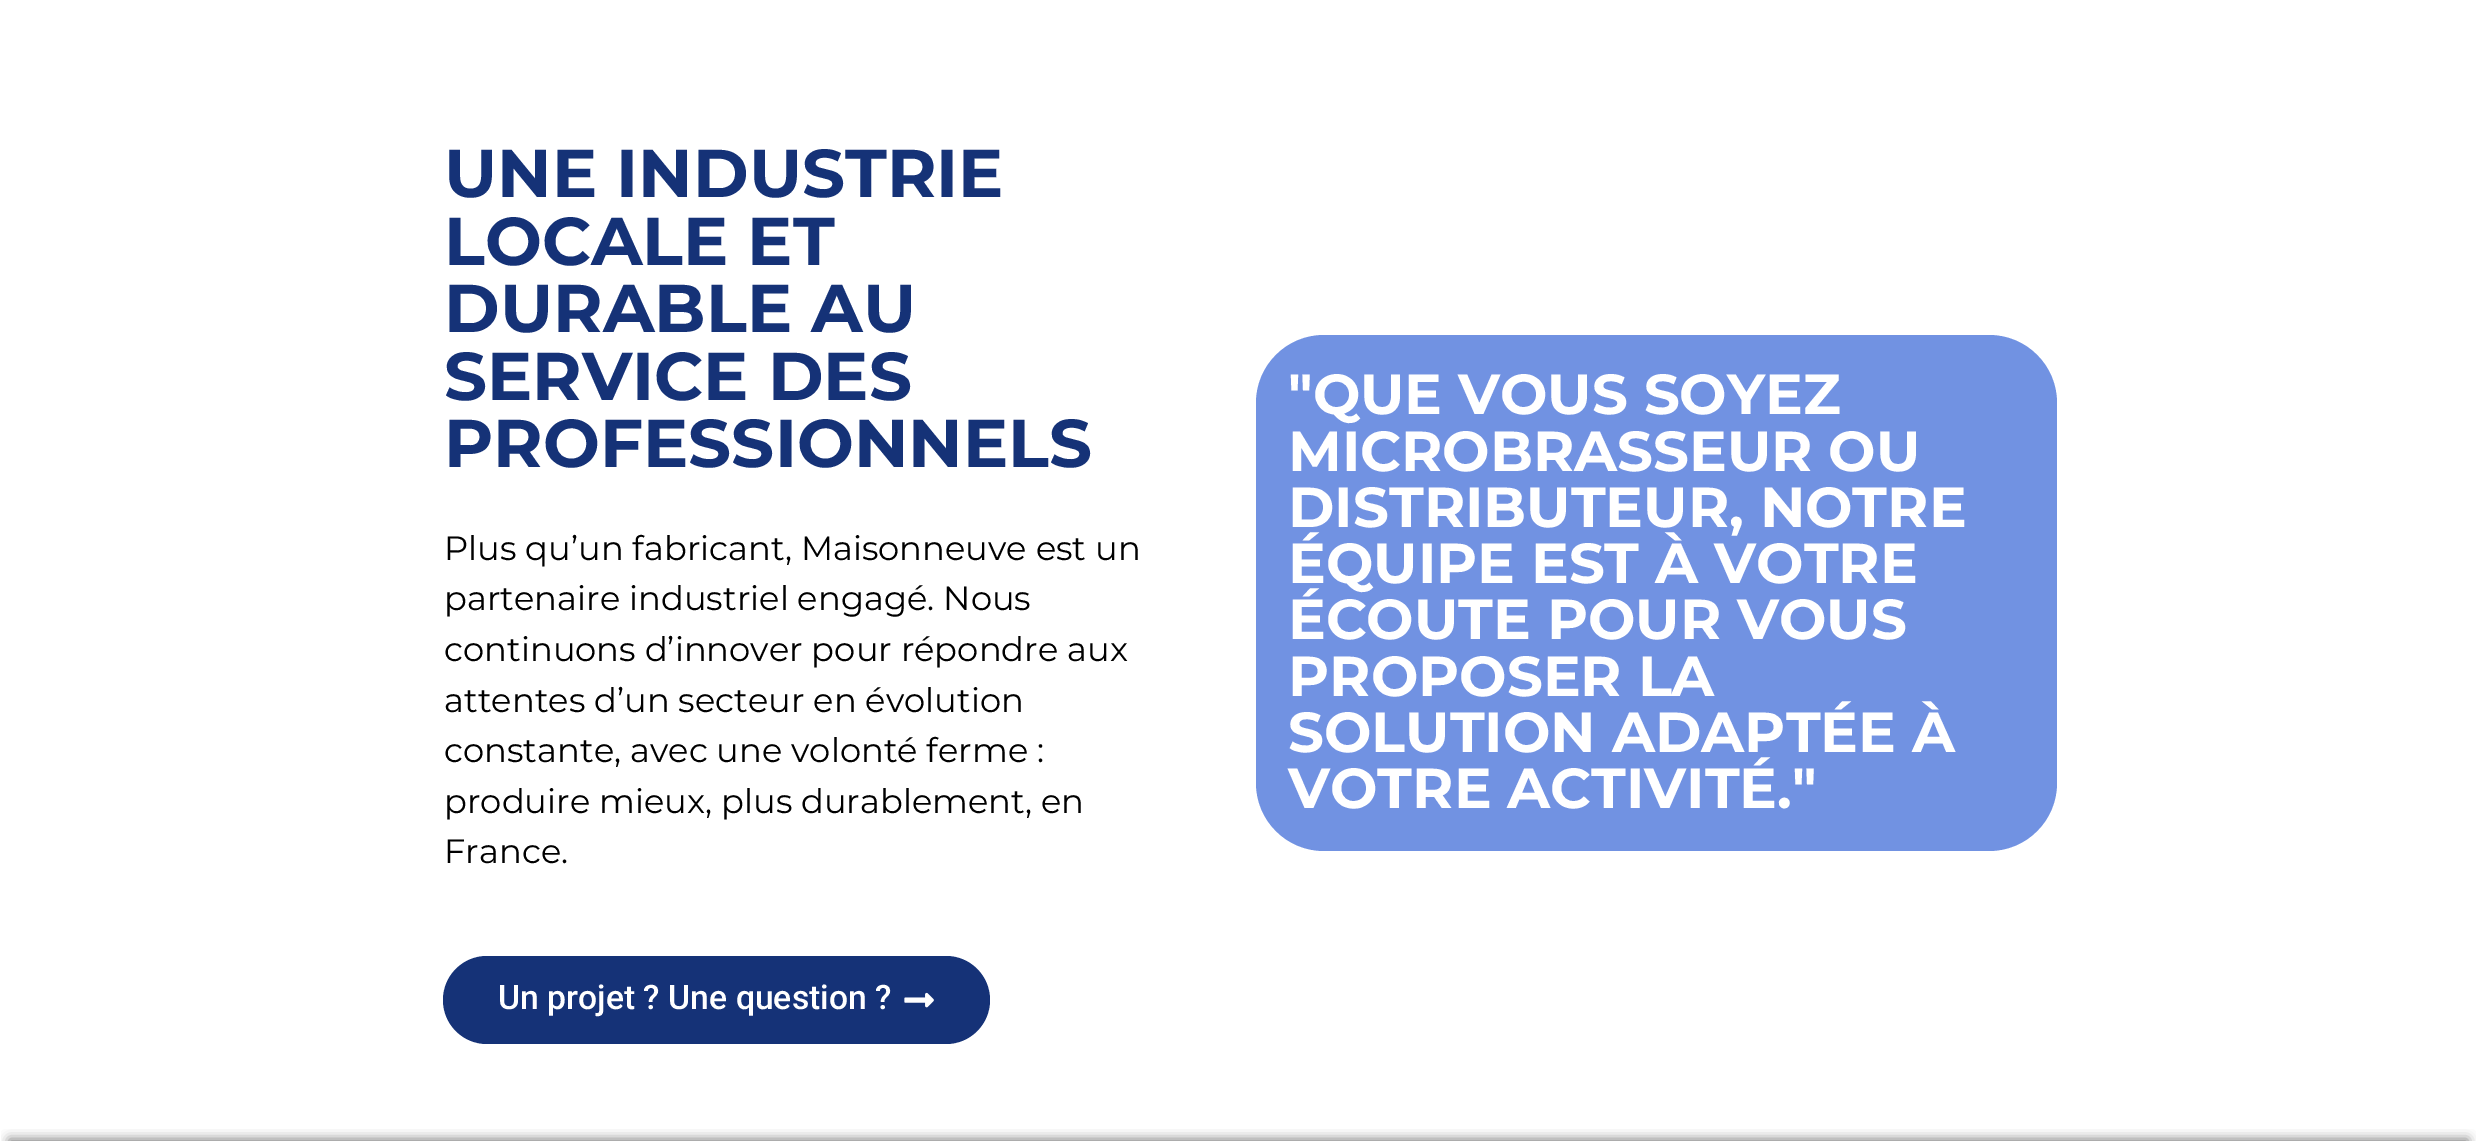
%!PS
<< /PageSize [2476 1143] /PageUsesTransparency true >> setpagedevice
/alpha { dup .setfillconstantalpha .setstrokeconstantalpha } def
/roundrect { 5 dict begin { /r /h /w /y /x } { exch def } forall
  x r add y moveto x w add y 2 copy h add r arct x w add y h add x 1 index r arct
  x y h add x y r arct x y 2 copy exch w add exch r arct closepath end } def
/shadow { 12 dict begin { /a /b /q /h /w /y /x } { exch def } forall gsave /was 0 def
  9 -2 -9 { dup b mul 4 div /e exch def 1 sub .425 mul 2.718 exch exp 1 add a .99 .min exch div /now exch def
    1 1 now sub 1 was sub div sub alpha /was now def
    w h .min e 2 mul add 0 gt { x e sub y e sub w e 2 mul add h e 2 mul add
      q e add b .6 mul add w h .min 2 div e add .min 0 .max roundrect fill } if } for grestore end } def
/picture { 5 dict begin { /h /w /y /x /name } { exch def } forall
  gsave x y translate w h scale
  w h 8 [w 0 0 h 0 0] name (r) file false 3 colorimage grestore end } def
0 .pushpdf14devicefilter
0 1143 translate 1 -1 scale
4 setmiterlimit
1 setgray
0 0 2476 1143 rectfill
/Montserrat-Bold [67.5 0 0 -67.5 0 0] selectfont
0.082 0.196 0.467 setrgbcolor
444 197 moveto (UNE INDUSTRIE) show
444 265 moveto (LOCALE ET) show
444 332 moveto (DURABLE AU) show
444 400 moveto (SERVICE DES) show
444 467 moveto (PROFESSIONNELS) show
/Montserrat-Regular [33.75 0 0 -33.75 0 0] selectfont
0 setgray
444 560 moveto (Plus qu’un fabricant, Maisonneuve est un) show
444 610 moveto (partenaire industriel engagé. Nous) show
444 661 moveto (continuons d’innover pour répondre aux) show
444 712 moveto (attentes d’un secteur en évolution) show
444 762 moveto (constante, avec une volonté ferme :) show
444 813 moveto (produire mieux, plus durablement, en) show
444 863 moveto (France.) show
0.082 0.196 0.467 setrgbcolor
443 956 547 88 44 roundrect fill
/Roboto-Medium [33.75 0 0 -33.75 0 0] selectfont
1 setgray
498 1009 moveto (Un projet ? Une question ?) show
(img1.rgb) 904 992 30 16 picture
0.443 0.573 0.886 setrgbcolor
1256 335 801 516 68 roundrect fill
/Montserrat-Bold [56.25 0 0 -56.25 0 0] selectfont
1 setgray
1288 414 moveto ("QUE VOUS SOYEZ) show
1288 471 moveto (MICROBRASSEUR OU) show
1288 527 moveto (DISTRIBUTEUR, NOTRE) show
1288 583 moveto (ÉQUIPE EST À VOTRE) show
1288 639 moveto (ÉCOUTE POUR VOUS) show
1288 696 moveto (PROPOSER LA) show
1288 752 moveto (SOLUTION ADAPTÉE À) show
1288 808 moveto (VOTRE ACTIVITÉ.") show
gsave
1 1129 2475 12 rectclip
0 setgray
9 1139 2459 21 0 5.5 0.5 shadow
grestore
.poppdf14devicefilter showpage
